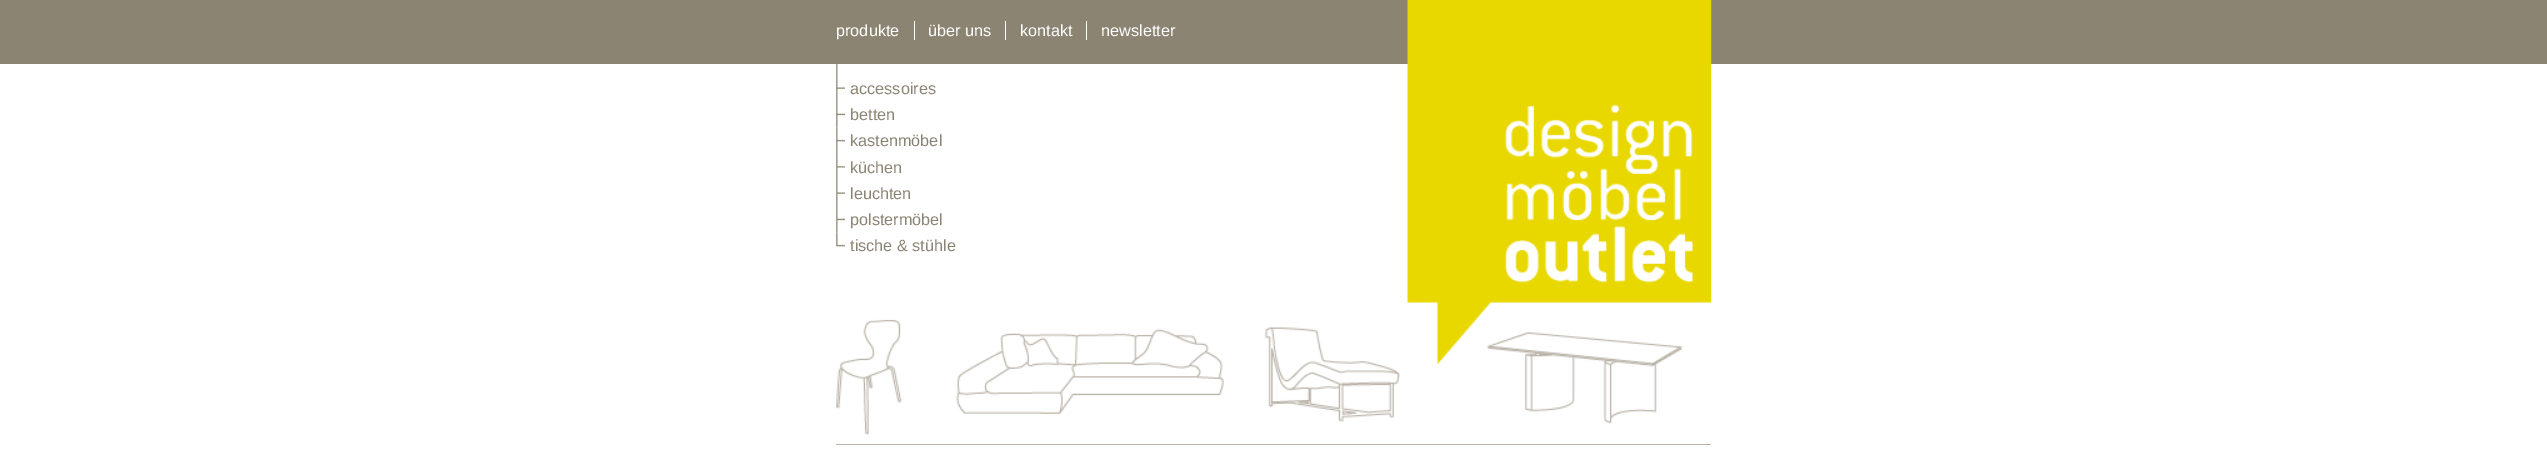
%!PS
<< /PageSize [2547 476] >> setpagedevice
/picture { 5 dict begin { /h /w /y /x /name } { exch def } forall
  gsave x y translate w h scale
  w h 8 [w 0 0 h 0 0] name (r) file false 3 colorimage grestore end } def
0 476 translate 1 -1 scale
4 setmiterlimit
1 setgray
0 0 2547 476 rectfill
0.549 0.518 0.451 setrgbcolor
0 0 2547 64 rectfill
1 setgray
914 21 1 19 rectfill
/LiberationSans-Regular [16.25 0 0 -16.25 0 0] selectfont
836 36 moveto (produkte) show
1005 21 1 19 rectfill
928 36 moveto (über uns) show
1086 21 1 19 rectfill
1020 36 moveto (kontakt) show
1101 36 moveto (newsletter) show
(img8.rgb) 836 319 847 116 picture
(img1.rgb) 1407 0 305 364 picture
(img2.rgb) 836 64 2 11 picture
(img3.rgb) 836 75 9 27 picture
0.549 0.518 0.451 setrgbcolor
850 94 moveto (accessoires) show
(img4.rgb) 836 101 9 27 picture
850 120 moveto (betten) show
(img5.rgb) 836 127 9 27 picture
850 146 moveto (kastenmöbel) show
(img6.rgb) 836 153 9 27 picture
850 173 moveto (küchen) show
(img3.rgb) 836 180 9 27 picture
850 199 moveto (leuchten) show
(img4.rgb) 836 206 9 27 picture
850 225 moveto (polstermöbel) show
(img7.rgb) 836 232 9 15 picture
850 251 moveto (tische & stühle) show
0.729 0.694 0.663 setrgbcolor
836 444 875 1 rectfill
showpage
